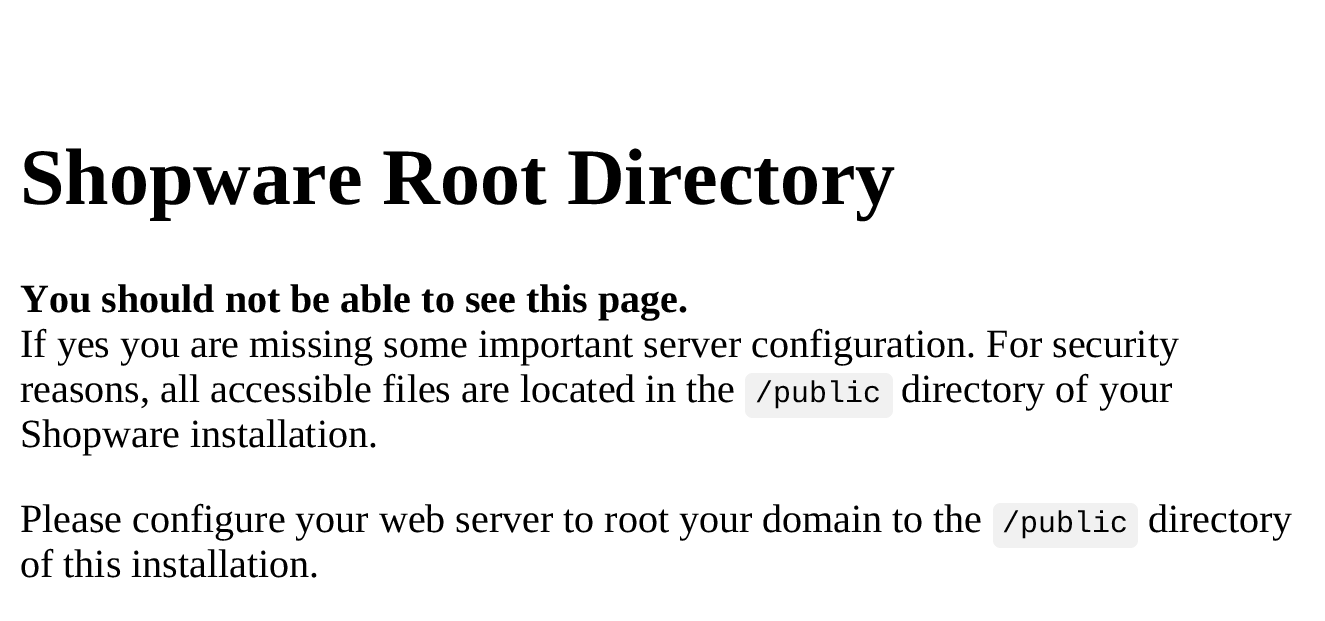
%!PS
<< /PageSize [1325 621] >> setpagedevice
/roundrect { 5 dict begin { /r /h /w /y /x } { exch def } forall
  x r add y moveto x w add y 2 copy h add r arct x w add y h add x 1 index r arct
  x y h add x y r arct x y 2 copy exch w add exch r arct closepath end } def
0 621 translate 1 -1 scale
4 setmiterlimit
1 setgray
0 0 1325 621 rectfill
/LiberationSerif-Bold [80 0 0 -80 0 0] selectfont
0 setgray
20 204 moveto (Shopware Root Directory) show
/LiberationSerif-Bold [40 0 0 -40 0 0] selectfont
20 312 moveto (You should not be able to see this page.) show
/LiberationSerif-Regular [40 0 0 -40 0 0] selectfont
20 357 moveto (If yes you are missing some important server configuration. For security) show
20 402 moveto (reasons, all accessible files are located in the) show
0.945 setgray
745 373 148 45 8 roundrect fill
/LiberationMono-Regular [30 0 0 -30 0 0] selectfont
0 setgray
755 402 moveto (/public) show
/LiberationSerif-Regular [40 0 0 -40 0 0] selectfont
901 402 moveto (directory of your) show
20 447 moveto (Shopware installation.) show
20 532 moveto (Please configure your web server to root your domain to the) show
0.945 setgray
993 503 145 45 8 roundrect fill
/LiberationMono-Regular [30 0 0 -30 0 0] selectfont
0 setgray
1002 532 moveto (/public) show
/LiberationSerif-Regular [40 0 0 -40 0 0] selectfont
1148 532 moveto (directory) show
20 577 moveto (of this installation.) show
showpage
